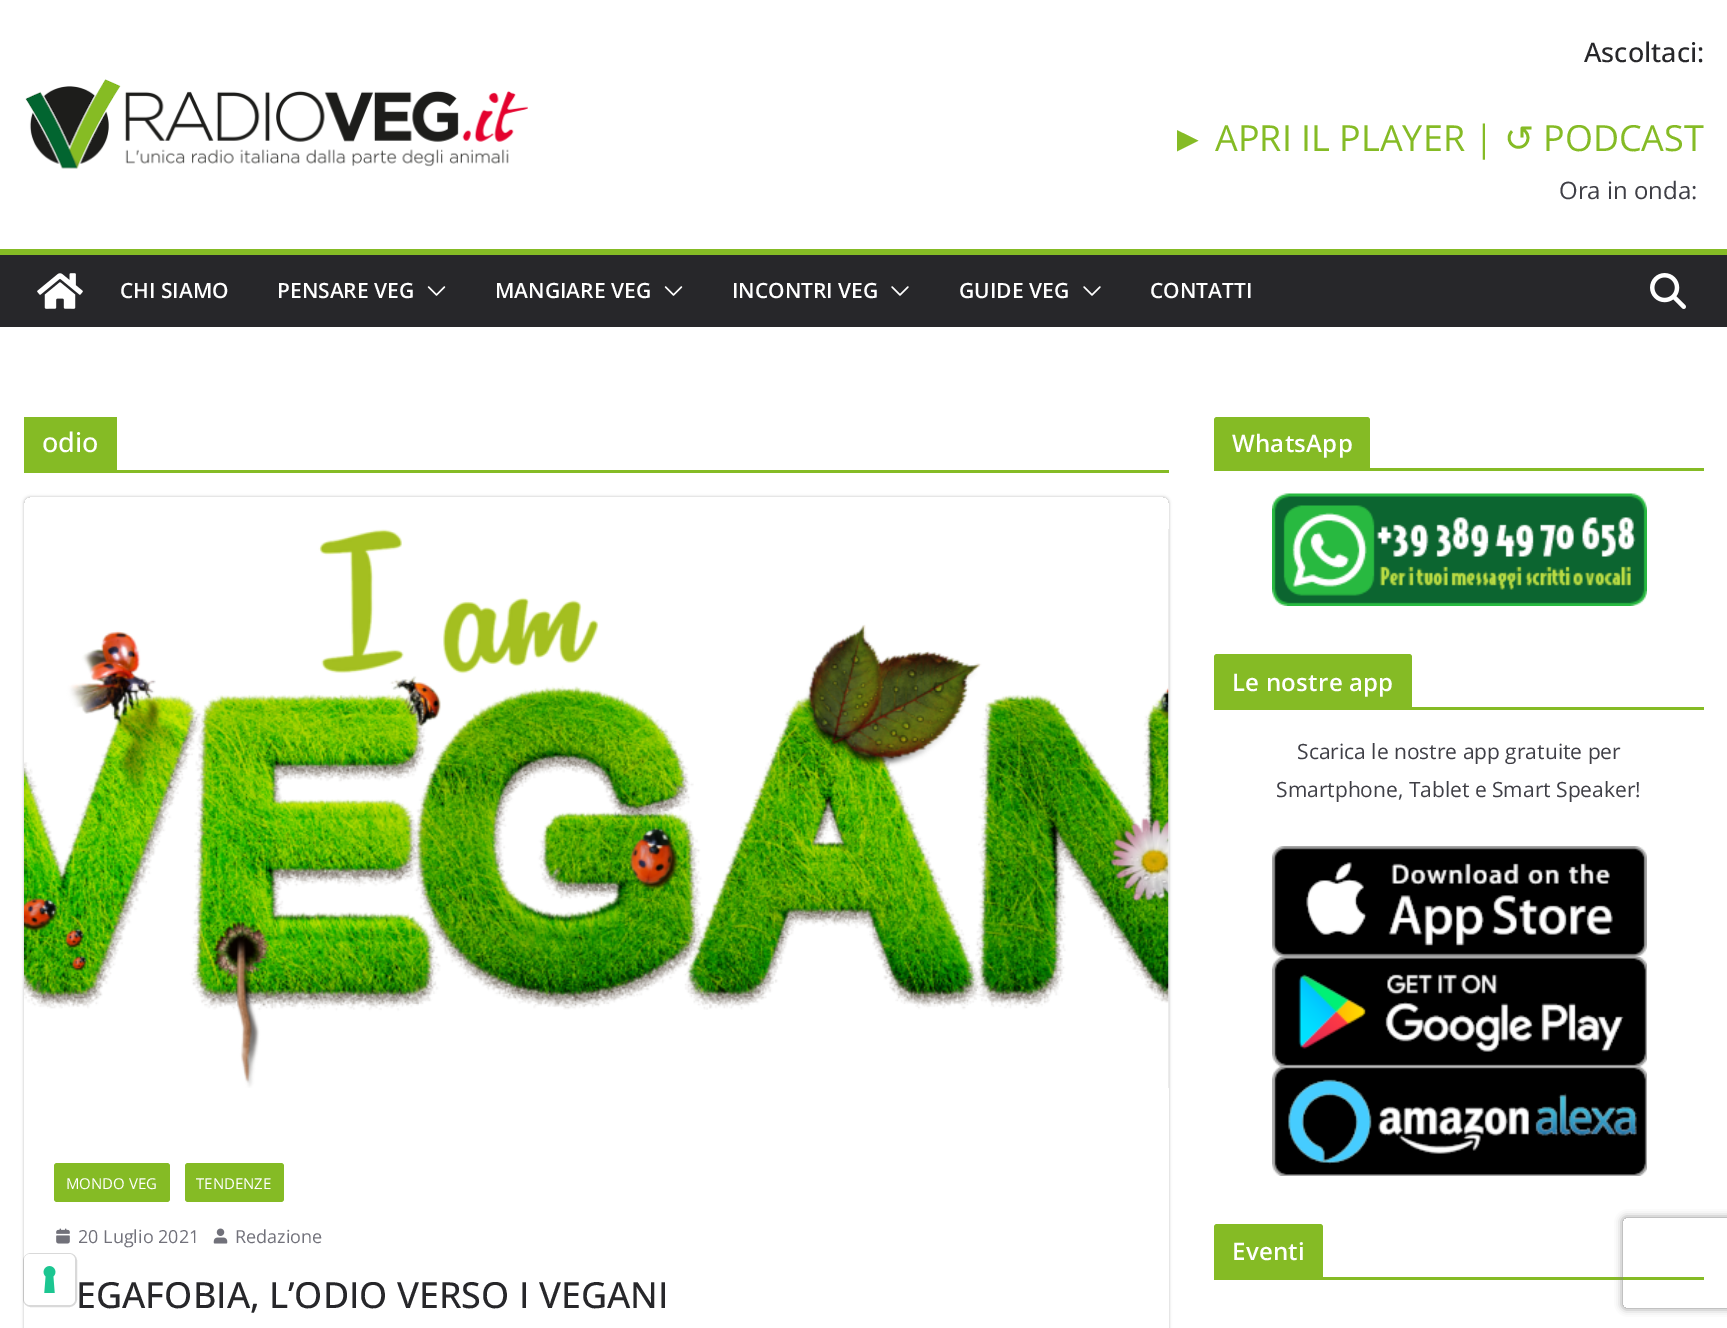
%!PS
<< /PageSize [1727 1328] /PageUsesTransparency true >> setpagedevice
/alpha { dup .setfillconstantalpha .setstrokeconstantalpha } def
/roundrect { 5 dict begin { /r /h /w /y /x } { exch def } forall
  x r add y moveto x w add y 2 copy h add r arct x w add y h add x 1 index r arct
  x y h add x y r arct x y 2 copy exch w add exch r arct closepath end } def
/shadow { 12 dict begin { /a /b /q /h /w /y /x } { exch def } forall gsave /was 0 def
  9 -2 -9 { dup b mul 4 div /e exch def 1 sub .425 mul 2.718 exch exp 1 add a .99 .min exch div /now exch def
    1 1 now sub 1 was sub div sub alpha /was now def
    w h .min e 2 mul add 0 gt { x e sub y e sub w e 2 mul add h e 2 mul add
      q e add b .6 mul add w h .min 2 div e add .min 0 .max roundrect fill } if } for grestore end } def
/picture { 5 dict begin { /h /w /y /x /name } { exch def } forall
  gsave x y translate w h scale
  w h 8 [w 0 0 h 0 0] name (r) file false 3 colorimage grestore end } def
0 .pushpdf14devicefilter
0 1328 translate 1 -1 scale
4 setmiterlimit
1 setgray
0 0 1727 1328 rectfill
(img1.rgb) 25 79 503 90 picture
/OpenSans-Medium [27 0 0 -27 0 0] selectfont
0.153 0.153 0.165 setrgbcolor
1584 62 moveto (Ascoltaci:) show
/LiberationSerif-Regular [36 0 0 -36 0 0] selectfont
0.522 0.733 0.145 setrgbcolor
1170 151 moveto (►) show
/OpenSans-Regular [36 0 0 -36 0 0] selectfont
1215 151 moveto (APRI IL PLAYER |) show
/DejaVuSans-Regular [36 0 0 -36 0 0] selectfont
1504 151 moveto (↺) show
/OpenSans-Regular [36 0 0 -36 0 0] selectfont
1543 151 moveto (PODCAST) show
/OpenSans-Regular [24 0 0 -24 0 0] selectfont
0.247 0.247 0.275 setrgbcolor
1559 199 moveto (Ora in onda:) show
0.153 0.153 0.165 setrgbcolor
0 255 1727 72 rectfill
0.522 0.733 0.145 setrgbcolor
0 249 1727 6 rectfill
(img2.rgb) 37 273 46 36 picture
/OpenSans-SemiBold [21 0 0 -21 0 0] selectfont
1 setgray
120 298 moveto (CHI SIAMO) show
277 298 moveto (PENSARE VEG) show
(img3.rgb) 427 286 19 10 picture
495 298 moveto (MANGIARE VEG) show
(img3.rgb) 664 286 19 10 picture
732 298 moveto (INCONTRI VEG) show
(img4.rgb) 891 286 18 10 picture
959 298 moveto (GUIDE VEG) show
(img4.rgb) 1083 286 18 10 picture
1150 298 moveto (CONTATTI) show
(img5.rgb) 1650 273 36 36 picture
0.522 0.733 0.145 setrgbcolor
24 470 1145 3 rectfill
24 417 93 53 rectfill
/OpenSans-Medium [27 0 0 -27 0 0] selectfont
1 setgray
42 452 moveto (odio) show
gsave
newpath 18 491 moveto 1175 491 lineto 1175 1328 lineto 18 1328 lineto closepath 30 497 moveto 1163 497 lineto 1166.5 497 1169 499.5 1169 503 curveto 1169 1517 lineto 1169 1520.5 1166.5 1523 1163 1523 curveto 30 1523 lineto 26.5 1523 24 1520.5 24 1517 curveto 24 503 lineto 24 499.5 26.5 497 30 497 curveto closepath eoclip newpath
0 setgray
24 497 1145 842 6 1.5 0.24 shadow
grestore
(img6.rgb) 24 529 1145 559 picture
0.522 0.733 0.145 setrgbcolor
54 1163 116 39 3 roundrect fill
/OpenSans-Regular [15 0 0 -15 0 0] selectfont
1 setgray
66 1189 moveto (MONDO VEG) show
0.522 0.733 0.145 setrgbcolor
185 1163 99 39 3 roundrect fill
1 setgray
196 1189 moveto (TENDENZE) show
(img7.rgb) 56 1228 14 16 picture
/OpenSans-Regular [18 0 0 -18 0 0] selectfont
0.443 0.443 0.478 setrgbcolor
78 1243 moveto (20 Luglio 2021) show
(img8.rgb) 213 1228 15 16 picture
235 1243 moveto (Redazione) show
/OpenSans-Medium [36 0 0 -36 0 0] selectfont
0.153 0.153 0.165 setrgbcolor
76 1308 moveto (EGAFOBIA, L’ODIO VERSO I VEGANI) show
0.522 0.733 0.145 setrgbcolor
1214 468 490 3 rectfill
newpath 1217 417 moveto 1367 417 lineto 1368.5 417 1370 418.5 1370 420 curveto 1370 468 lineto 1214 468 lineto 1214 420 lineto 1214 418.5 1215.5 417 1217 417 curveto closepath fill
/OpenSans-SemiBold [24 0 0 -24 0 0] selectfont
1 setgray
1232 452 moveto 0.25 0 (WhatsApp) ashow
(img9.rgb) 1272 493 375 113 picture
0.522 0.733 0.145 setrgbcolor
1214 707 490 3 rectfill
newpath 1217 654 moveto 1409 654 lineto 1410.5 654 1412 655.5 1412 657 curveto 1412 707 lineto 1214 707 lineto 1214 657 lineto 1214 655.5 1215.5 654 1217 654 curveto closepath fill
1 setgray
1232 691 moveto 0.25 0 (Le nostre app) ashow
/OpenSans-Regular [21 0 0 -21 0 0] selectfont
0.247 0.247 0.275 setrgbcolor
1297 759 moveto (Scarica le nostre app gratuite per) show
1276 797 moveto (Smartphone, Tablet e Smart Speaker!) show
(img10.rgb) 1272 846 375 111 picture
(img11.rgb) 1272 957 375 110 picture
(img12.rgb) 1272 1066 375 110 picture
0.522 0.733 0.145 setrgbcolor
1214 1277 490 3 rectfill
newpath 1217 1224 moveto 1320 1224 lineto 1321.5 1224 1323 1225.5 1323 1227 curveto 1323 1277 lineto 1214 1277 lineto 1214 1227 lineto 1214 1225.5 1215.5 1224 1217 1224 curveto closepath fill
/OpenSans-SemiBold [24 0 0 -24 0 0] selectfont
1 setgray
1232 1260 moveto 0.25 0 (Eventi) ashow
0.15 alpha
0 setgray
2 setlinewidth
24 1254 52 52 7 roundrect stroke
1 alpha
1 setgray
24 1254 51 51 6 roundrect fill
(img13.rgb) 43 1266 13 27 picture
gsave
newpath 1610 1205 moveto 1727 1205 lineto 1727 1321 lineto 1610 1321 lineto closepath 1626 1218 moveto 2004 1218 lineto 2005.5 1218 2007 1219.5 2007 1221 curveto 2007 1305 lineto 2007 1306.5 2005.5 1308 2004 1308 curveto 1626 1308 lineto 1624.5 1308 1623 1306.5 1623 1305 curveto 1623 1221 lineto 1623 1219.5 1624.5 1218 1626 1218 curveto closepath eoclip newpath
0.502 setgray
1623 1218 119 90 3 4 1 shadow
grestore
.poppdf14devicefilter showpage
